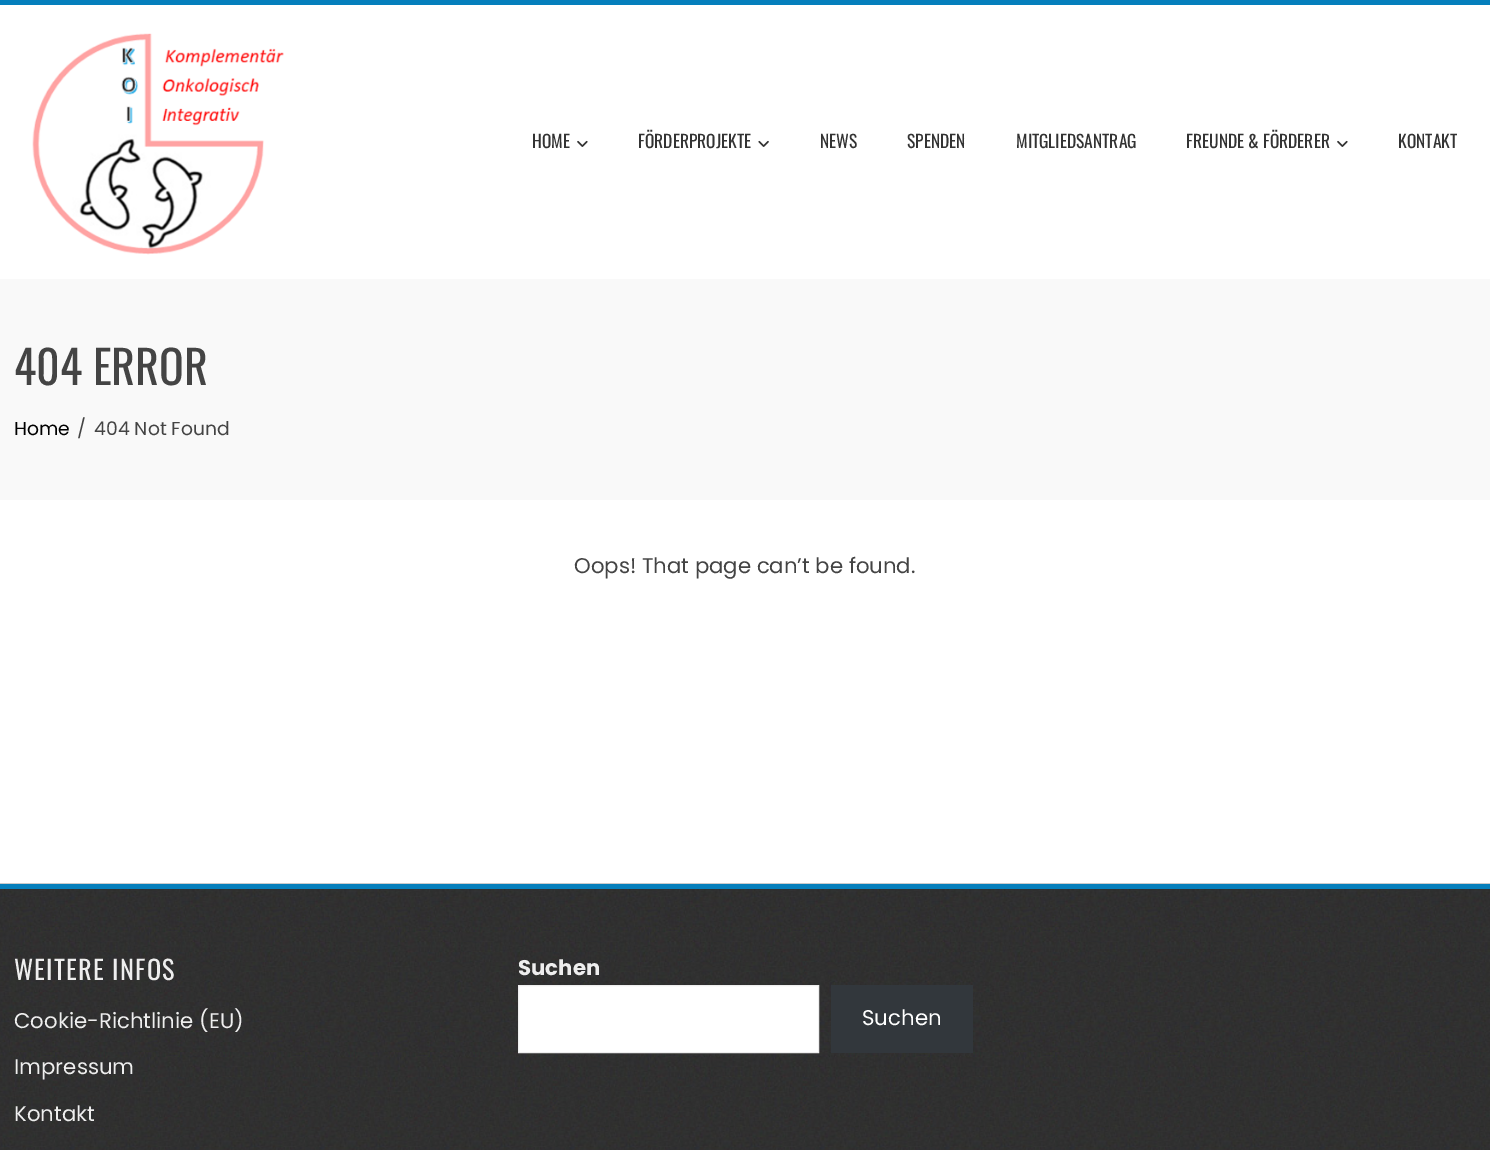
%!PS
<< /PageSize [1490 1150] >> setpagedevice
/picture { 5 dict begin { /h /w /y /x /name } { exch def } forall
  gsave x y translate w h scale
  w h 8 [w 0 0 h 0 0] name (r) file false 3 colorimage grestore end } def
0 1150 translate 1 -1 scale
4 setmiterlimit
1 setgray
0 0 1490 1150 rectfill
0.02 0.498 0.737 setrgbcolor
0 0 1490 5 rectfill
(img1.rgb) 32 33 252 222 picture
/Oswald-Regular [17.5 0 0 -17.5 0 0] selectfont
0.2 setgray
532 148 moveto (HOME) show
(img2.rgb) 577 140 11 7 picture
638 148 moveto (FÖRDERPROJEKTE) show
(img3.rgb) 758 140 11 7 picture
820 148 moveto (NEWS) show
907 148 moveto (SPENDEN) show
1016 148 moveto (MITGLIEDSANTRAG) show
1186 148 moveto (FREUNDE & FÖRDERER) show
(img2.rgb) 1337 140 11 7 picture
1398 148 moveto (KONTAKT) show
0.976 setgray
0 279 1490 221 rectfill
/Oswald-Regular [46 0 0 -46 0 0] selectfont
0.267 setgray
14 385 moveto (404 ERROR) show
/Poppins-Regular [18.75 0 0 -18.75 0 0] selectfont
0 setgray
14 435 moveto (Home) show
0.267 setgray
77 435 moveto (/) show
94 435 moveto (404 Not Found) show
/Poppins-Regular [21.25 0 0 -21.25 0 0] selectfont
574 573 moveto (Oops! That page can’t be found.) show
(img4.rgb) 0 883 1490 267 picture
0.02 0.498 0.737 setrgbcolor
0 884 1490 5 rectfill
/Oswald-Regular [26.25 0 0 -26.25 0 0] selectfont
0.933 setgray
14 980 moveto 1.25 0 (WEITERE INFOS) ashow
/Poppins-Regular [21.25 0 0 -21.25 0 0] selectfont
14 1028 moveto (Cookie-Richtlinie \(EU\)) show
14 1074 moveto (Impressum) show
14 1121 moveto (Kontakt) show
/Poppins-Bold [21.25 0 0 -21.25 0 0] selectfont
518 975 moveto (Suchen) show
1 setgray
newpath 518.5 985.5 moveto 818.5 985.5 lineto 818.5 1052.5 lineto 518.5 1052.5 lineto closepath gsave fill grestore
0.933 setgray
stroke
0.196 0.216 0.235 setrgbcolor
831 985 142 68 rectfill
/Poppins-Regular [21.25 0 0 -21.25 0 0] selectfont
1 setgray
862 1025 moveto (Suchen) show
showpage
